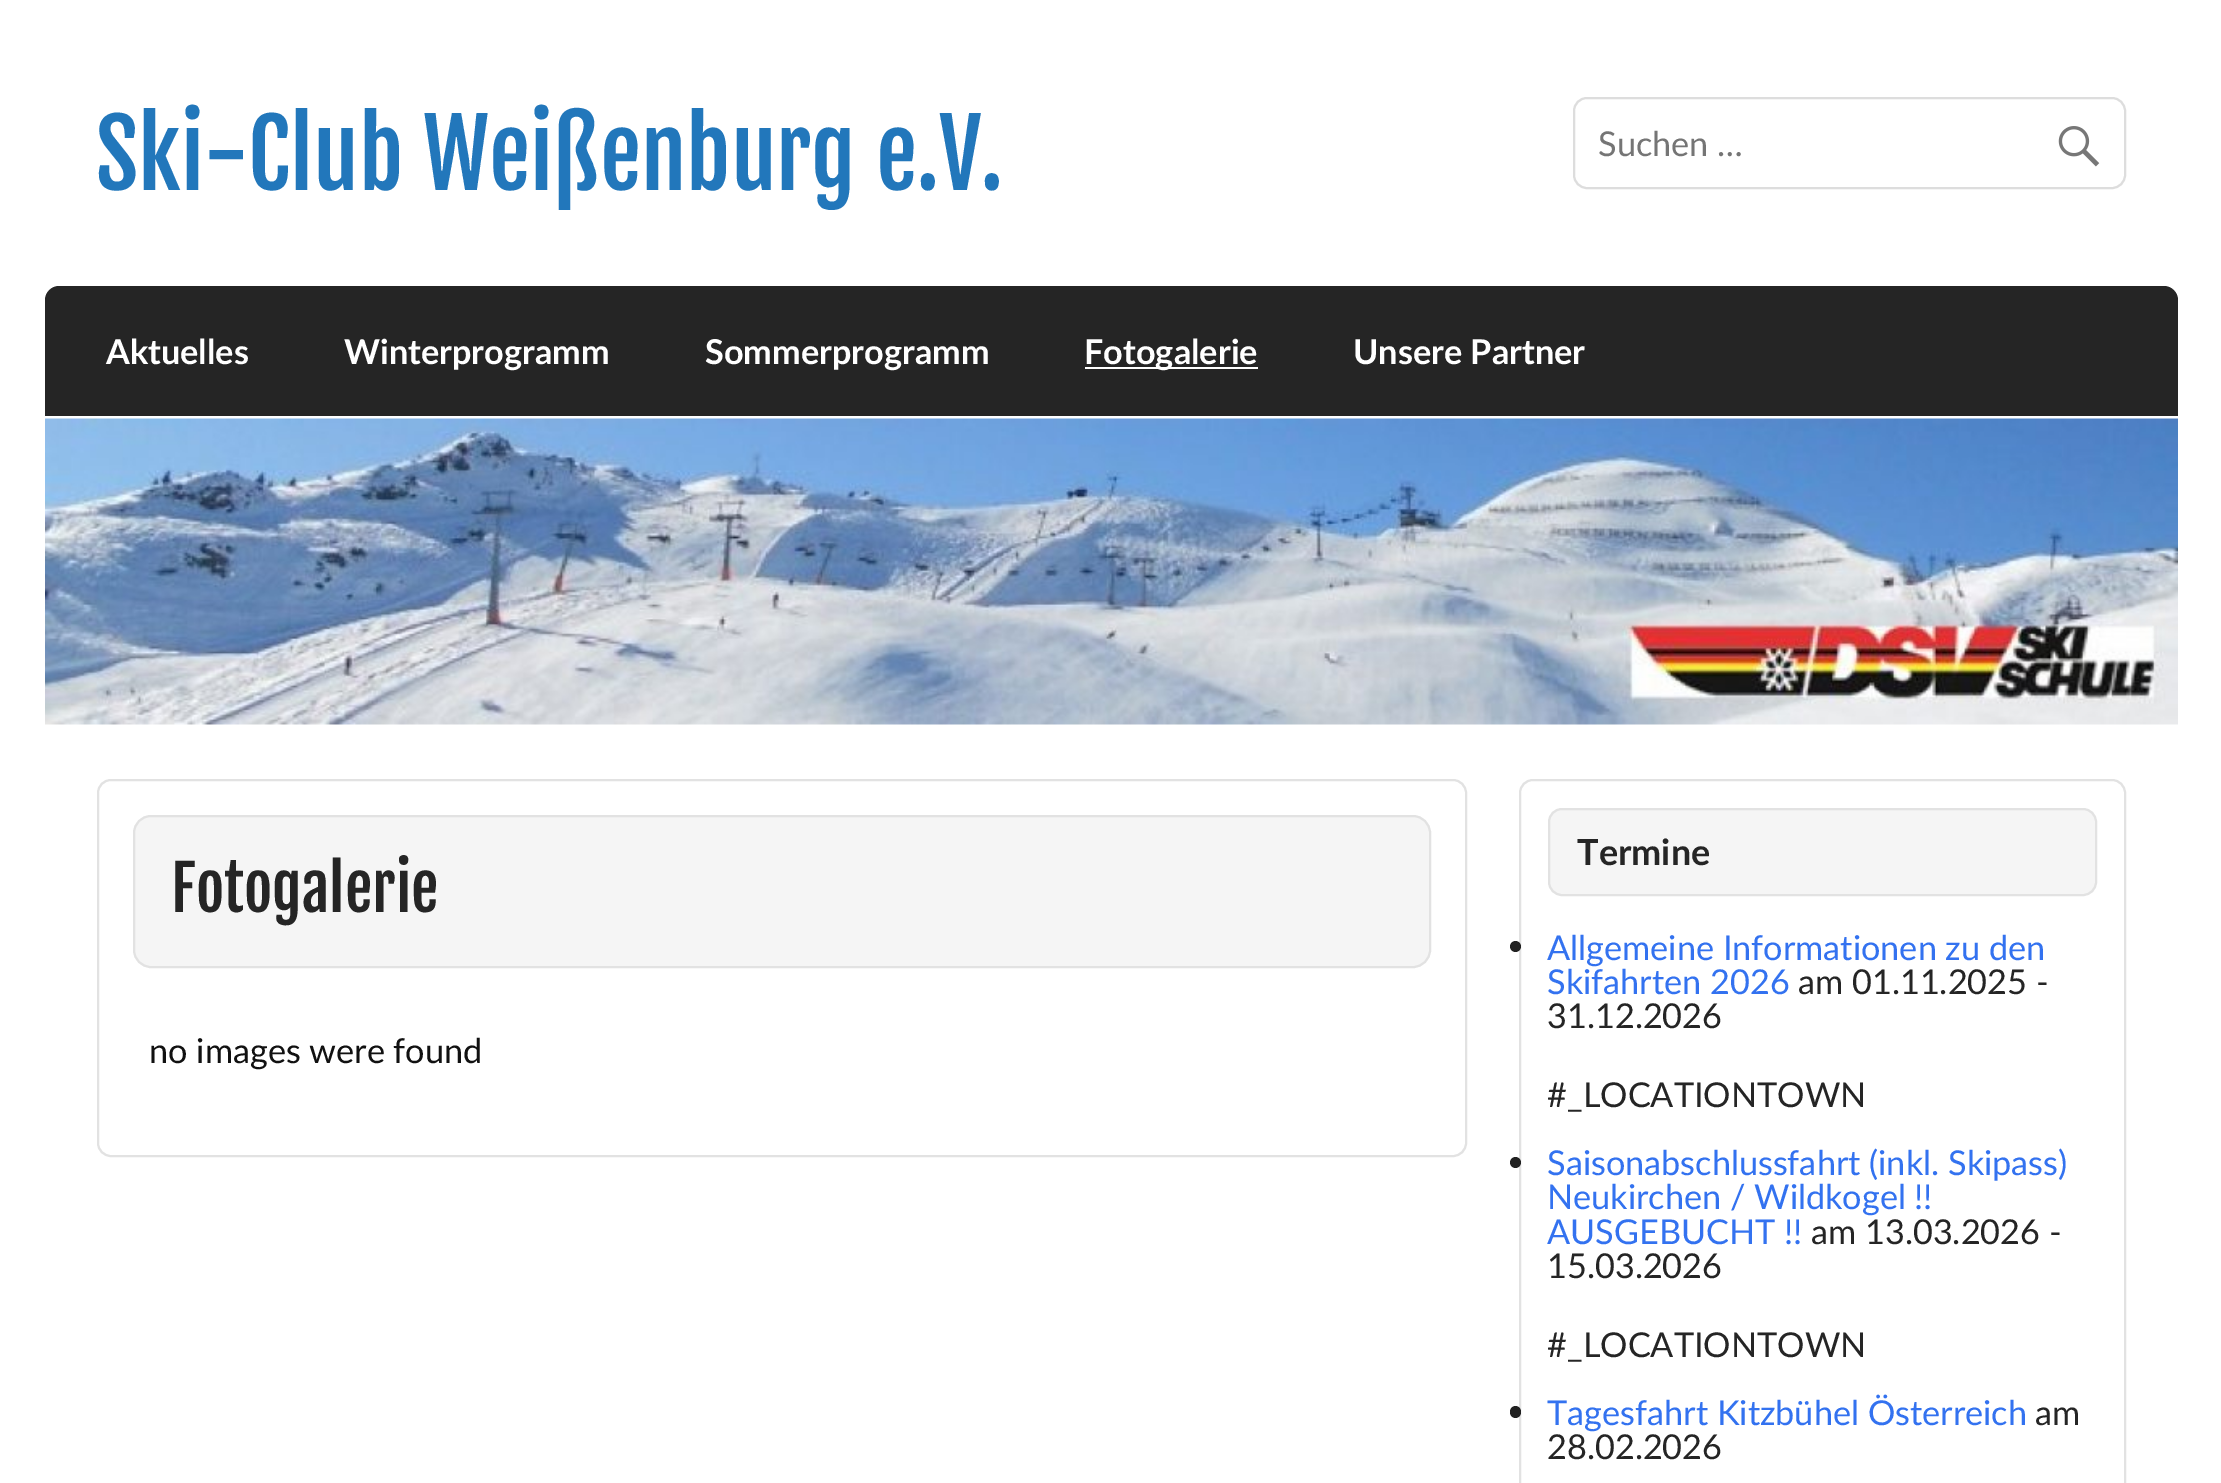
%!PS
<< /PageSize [2221 1483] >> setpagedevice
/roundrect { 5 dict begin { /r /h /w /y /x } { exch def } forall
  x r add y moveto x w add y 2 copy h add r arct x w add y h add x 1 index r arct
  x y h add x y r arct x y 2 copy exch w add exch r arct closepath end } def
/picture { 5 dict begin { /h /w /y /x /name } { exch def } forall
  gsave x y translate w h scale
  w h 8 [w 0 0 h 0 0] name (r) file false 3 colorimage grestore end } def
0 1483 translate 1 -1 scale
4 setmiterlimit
1 setgray
0 0 2221 1483 rectfill
/FjallaOne-Regular [92.25 0 0 -92.25 0 0] selectfont
0.133 0.467 0.733 setrgbcolor
96 190 moveto (Ski-Club Weißenburg e.V.) show
0.867 setgray
2 setlinewidth
1574 98 551 90 13 roundrect stroke
/Lato-Regular [34.25 0 0 -34.25 0 0] selectfont
0.459 setgray
1598 156 moveto (Suchen …) show
(img1.rgb) 2058 126 42 41 picture
0.145 setgray
newpath 59 286 moveto 2164 286 lineto 2171.5 286 2178 292.5 2178 300 curveto 2178 416 lineto 45 416 lineto 45 300 lineto 45 292.5 51.5 286 59 286 curveto closepath fill
/Lato-Bold [34.25 0 0 -34.25 0 0] selectfont
1 setgray
106 364 moveto (Aktuelles) show
344 364 moveto (Winterprogramm) show
705 364 moveto (Sommerprogramm) show
1085 367 173 2 rectfill
1084 364 moveto (Fotogalerie) show
1353 364 moveto (Unsere Partner) show
(img2.rgb) 45 418 2133 307 picture
0.886 setgray
98 780 1368 376 13 roundrect stroke
0.961 setgray
134 816 1296 151 17 roundrect gsave fill grestore
0.886 setgray
stroke
/FjallaOne-Regular [61.5 0 0 -61.5 0 0] selectfont
0.145 setgray
171 912 moveto (Fotogalerie) show
/Lato-Regular [34.25 0 0 -34.25 0 0] selectfont
0.067 setgray
149 1063 moveto (no images were found) show
0.886 setgray
1520 780 605 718 13 roundrect stroke
0.961 setgray
1549 809 547 86 13 roundrect gsave fill grestore
0.886 setgray
stroke
/Lato-Bold [36 0 0 -36 0 0] selectfont
0.145 setgray
1577 865 moveto (Termine) show
0.129 setgray
newpath 1515.5 946.5 5.5 0 360 arc closepath fill
/Lato-Regular [34.25 0 0 -34.25 0 0] selectfont
0.2 0.447 0.941 setrgbcolor
1547 960 moveto (Allgemeine Informationen zu den) show
1547 994 moveto (Skifahrten 2026) show
0.145 setgray
1798 994 moveto (am 01.11.2025 -) show
1547 1028 moveto (31.12.2026) show
1547 1107 moveto (#_LOCATIONTOWN) show
0.129 setgray
newpath 1515.5 1162.5 5.5 0 360 arc closepath fill
0.2 0.447 0.941 setrgbcolor
1547 1175 moveto (Saisonabschlussfahrt \(inkl. Skipass\)) show
1547 1209 moveto (Neukirchen / Wildkogel) show
1914 1209 moveto (!!) show
1547 1244 moveto (AUSGEBUCHT !!) show
0.145 setgray
1811 1244 moveto (am 13.03.2026 -) show
1547 1278 moveto (15.03.2026) show
1547 1357 moveto (#_LOCATIONTOWN) show
0.129 setgray
1510 1406 11 12 5.5 roundrect fill
0.2 0.447 0.941 setrgbcolor
1547 1425 moveto (Tagesfahrt Kitzbühel Österreich) show
0.145 setgray
2035 1425 moveto (am) show
1547 1459 moveto (28.02.2026) show
showpage
